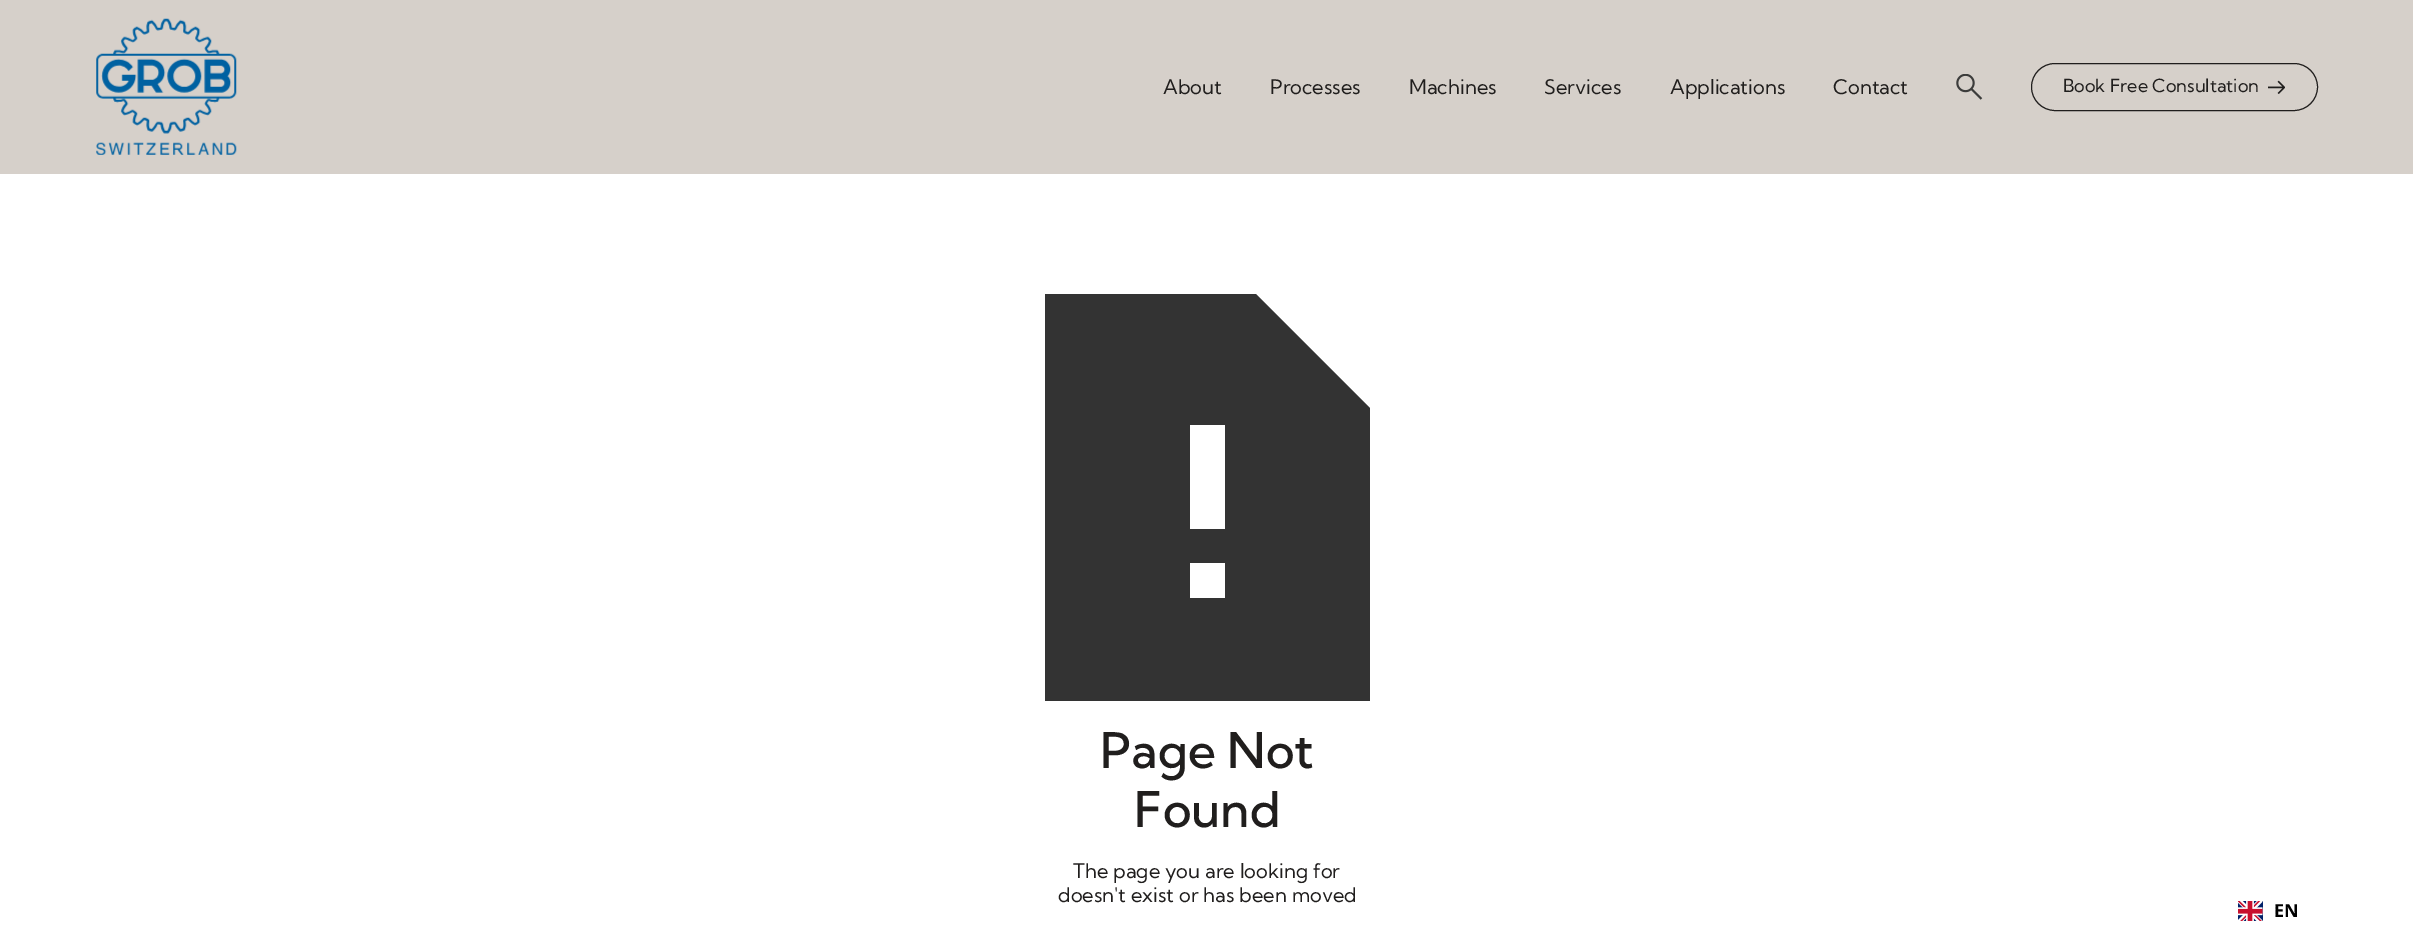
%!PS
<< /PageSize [2413 936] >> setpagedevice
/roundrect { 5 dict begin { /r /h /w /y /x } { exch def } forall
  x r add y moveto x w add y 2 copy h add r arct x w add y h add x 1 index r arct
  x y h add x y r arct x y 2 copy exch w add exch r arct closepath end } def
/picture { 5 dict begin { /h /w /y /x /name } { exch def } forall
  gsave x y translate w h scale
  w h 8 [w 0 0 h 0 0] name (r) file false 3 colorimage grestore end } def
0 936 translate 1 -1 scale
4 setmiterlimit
1 setgray
0 0 2413 936 rectfill
0.839 0.816 0.792 setrgbcolor
0 0 2413 174 rectfill
(img1.rgb) 96 18 141 137 picture
/KumbhSans-Regular [20 0 0 -20 0 0] selectfont
0.125 0.118 0.114 setrgbcolor
1163 94 moveto (About) show
1270 94 moveto (Processes) show
1409 94 moveto (Machines) show
1544 94 moveto (Services) show
1670 94 moveto (Applications) show
1833 94 moveto (Contact) show
(img2.rgb) 1956 74 27 26 picture
2031.5 63.5 286 47 23.5 roundrect stroke
/KumbhSans-Regular [18 0 0 -18 0 0] selectfont
2063 92 moveto (Book Free Consultation) show
(img3.rgb) 2268 80 17 14 picture
gsave
1045 294 325 407 rectclip
0.2 setgray
newpath 1045 294 moveto 1256 294 lineto 1370 408 lineto 1370 702 lineto 1045 702 lineto closepath 1190 425 moveto 1225 425 lineto 1225 529 lineto 1190 529 lineto closepath 1190 563 moveto 1225 563 lineto 1225 598 lineto 1190 598 lineto closepath eofill
grestore
/KumbhSans-Medium [49 0 0 -49 0 0] selectfont
1100 768 moveto (Page Not) show
1134 827 moveto (Found) show
/KumbhSans-Regular [20 0 0 -20 0 0] selectfont
1073 878 moveto (The page you are looking for) show
1058 902 moveto (doesn't exist or has been moved) show
(img4.rgb) 2238 901 25 20 picture
/NotoSans-Bold [18 0 0 -18 0 0] selectfont
0 setgray
2274 917 moveto (EN) show
showpage
